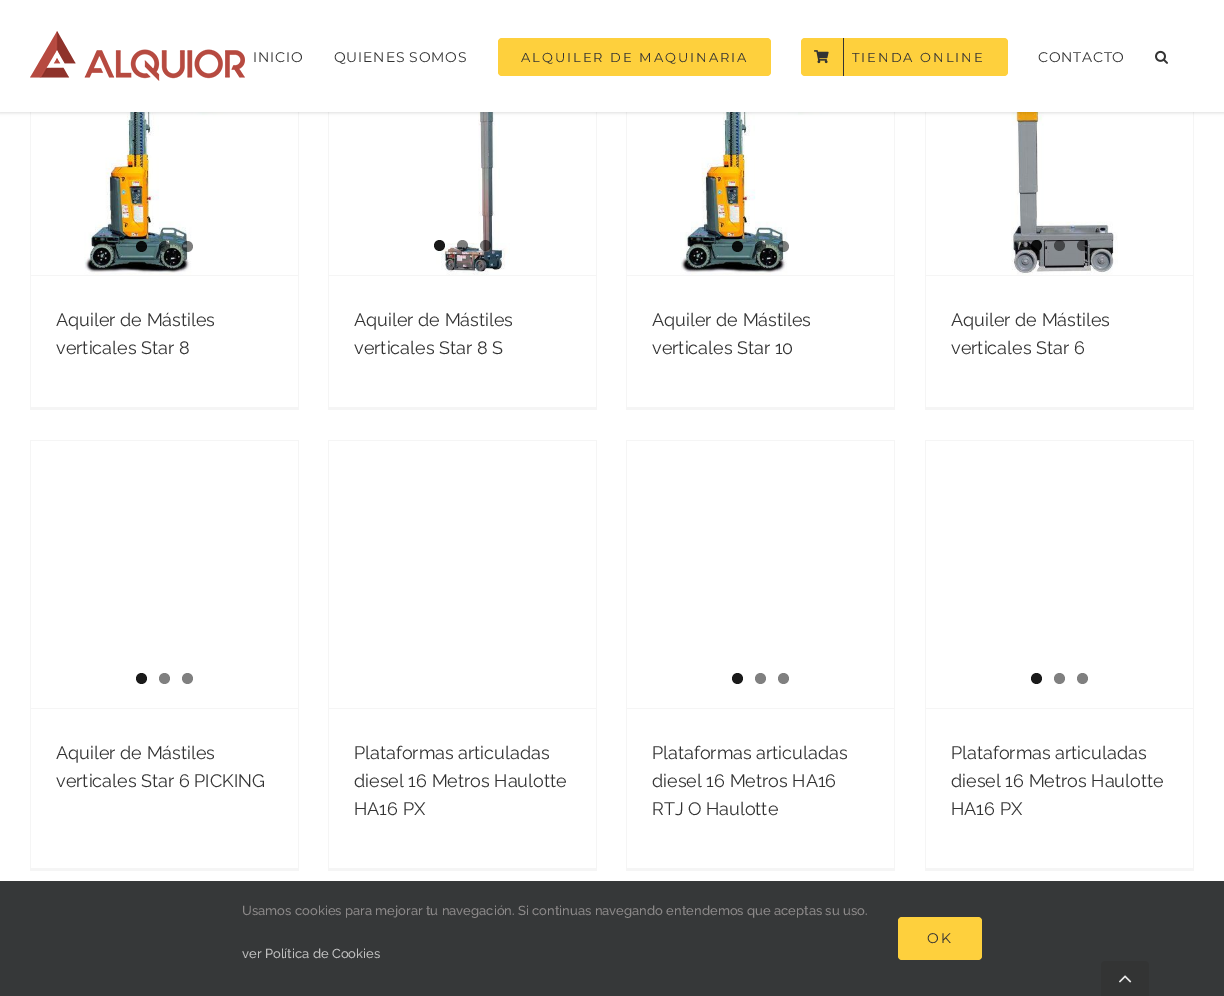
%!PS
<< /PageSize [1224 996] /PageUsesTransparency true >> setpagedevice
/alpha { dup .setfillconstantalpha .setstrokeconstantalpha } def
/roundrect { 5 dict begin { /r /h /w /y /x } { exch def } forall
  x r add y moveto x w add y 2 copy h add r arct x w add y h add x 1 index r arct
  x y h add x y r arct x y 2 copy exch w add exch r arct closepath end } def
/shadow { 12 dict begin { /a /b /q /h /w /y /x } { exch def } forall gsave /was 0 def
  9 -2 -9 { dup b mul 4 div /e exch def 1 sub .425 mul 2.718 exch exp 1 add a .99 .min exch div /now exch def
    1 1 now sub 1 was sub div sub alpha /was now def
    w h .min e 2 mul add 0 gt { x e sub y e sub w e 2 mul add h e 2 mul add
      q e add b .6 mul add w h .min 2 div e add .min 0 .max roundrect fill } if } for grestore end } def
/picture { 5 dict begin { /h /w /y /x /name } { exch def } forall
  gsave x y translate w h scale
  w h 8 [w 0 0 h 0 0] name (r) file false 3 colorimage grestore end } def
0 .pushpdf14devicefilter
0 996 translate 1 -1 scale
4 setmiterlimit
1 setgray
0 0 1224 996 rectfill
0.961 setgray
298 112 1 298 rectfill
30 407 269 3 rectfill
30 112 1 298 rectfill
(img4.rgb) 84 112 166 163 picture
596 112 1 298 rectfill
328 407 269 3 rectfill
328 112 1 298 rectfill
(img5.rgb) 429 112 81 163 picture
894 112 1 298 rectfill
626 407 269 3 rectfill
626 112 1 298 rectfill
(img6.rgb) 680 112 166 163 picture
1193 112 1 298 rectfill
925 407 269 3 rectfill
925 112 1 298 rectfill
(img7.rgb) 1011 112 107 163 picture
0 setgray
0 1 1224 112 0 1.5 0.12 shadow
1 setgray
0 0 1224 112 rectfill
(img1.rgb) 30 31 215 50 picture
/Montserrat-Regular [14 0 0 -14 0 0] selectfont
0.2 setgray
253 62 moveto 0.75 0 (INICIO) ashow
334 62 moveto 0.75 0 (QUIENES SOMOS) ashow
0.996 0.816 0.239 setrgbcolor
498 38 273 38 4 roundrect fill
/Montserrat-Regular [13 0 0 -13 0 0] selectfont
0.2 setgray
521 62 moveto 2 0 (ALQUILER DE MAQUINARIA) ashow
0.996 0.816 0.239 setrgbcolor
801 38 207 38 4 roundrect fill
0.2 setgray
843 38 1 38 rectfill
(img2.rgb) 814 50 15 14 picture
852 62 moveto 2 0 (TIENDA ONLINE) ashow
/Montserrat-Regular [14 0 0 -14 0 0] selectfont
1038 62 moveto 0.75 0 (CONTACTO) ashow
(img3.rgb) 1155 50 13 14 picture
0.961 setgray
31 275 267 1 rectfill
0.9 alpha
0 setgray
newpath 141.5 246.5 5.5 0 360 arc closepath fill
0.5 alpha
newpath 164.5 246.5 5.5 0 360 arc closepath fill
newpath 187.5 246.5 5.5 0 360 arc closepath fill
/Raleway-Regular [18 0 0 -18 0 0] selectfont
1 alpha
0.2 setgray
56 326 moveto (Aquiler de Mástiles) show
56 354 moveto (verticales Star 8) show
0.961 setgray
329 275 267 1 rectfill
0.9 alpha
0 setgray
newpath 439.5 245.5 5.5 0 360 arc closepath fill
0.5 alpha
newpath 462.5 245.5 5.5 0 360 arc closepath fill
newpath 485.5 245.5 5.5 0 360 arc closepath fill
1 alpha
0.2 setgray
354 326 moveto (Aquiler de Mástiles) show
354 354 moveto (verticales Star 8 S) show
0.961 setgray
627 275 267 1 rectfill
0.9 alpha
0 setgray
newpath 737.5 246.5 5.5 0 360 arc closepath fill
0.5 alpha
newpath 760.5 246.5 5.5 0 360 arc closepath fill
newpath 783.5 246.5 5.5 0 360 arc closepath fill
1 alpha
0.2 setgray
652 326 moveto (Aquiler de Mástiles) show
652 354 moveto (verticales Star 10) show
0.961 setgray
926 275 267 1 rectfill
0.9 alpha
0 setgray
newpath 1036.5 245.5 5.5 0 360 arc closepath fill
0.5 alpha
newpath 1059.5 245.5 5.5 0 360 arc closepath fill
newpath 1082.5 245.5 5.5 0 360 arc closepath fill
1 alpha
0.2 setgray
951 326 moveto (Aquiler de Mástiles) show
951 354 moveto (verticales Star 6) show
0.961 setgray
30 440 269 1 rectfill
298 440 1 431 rectfill
30 868 269 3 rectfill
30 440 1 431 rectfill
31 708 267 1 rectfill
0.102 setgray
newpath 141.5 678.5 5.5 0 360 arc closepath fill
0.502 setgray
newpath 164.5 678.5 5.5 0 360 arc closepath fill
newpath 187.5 678.5 5.5 0 360 arc closepath fill
0.2 setgray
56 759 moveto (Aquiler de Mástiles) show
56 787 moveto (verticales Star 6 PICKING) show
0.961 setgray
328 440 269 1 rectfill
596 440 1 431 rectfill
328 868 269 3 rectfill
328 440 1 431 rectfill
329 708 267 1 rectfill
0.2 setgray
354 759 moveto (Plataformas articuladas) show
354 787 moveto (diesel 16 Metros Haulotte) show
354 815 moveto (HA16 PX) show
0.961 setgray
626 440 269 1 rectfill
894 440 1 431 rectfill
626 868 269 3 rectfill
626 440 1 431 rectfill
627 708 267 1 rectfill
0.102 setgray
newpath 737.5 678.5 5.5 0 360 arc closepath fill
0.502 setgray
newpath 760.5 678.5 5.5 0 360 arc closepath fill
newpath 783.5 678.5 5.5 0 360 arc closepath fill
0.2 setgray
652 759 moveto (Plataformas articuladas) show
652 787 moveto (diesel 16 Metros HA16) show
652 815 moveto (RTJ O Haulotte) show
0.961 setgray
925 440 269 1 rectfill
1193 440 1 431 rectfill
925 868 269 3 rectfill
925 440 1 431 rectfill
926 708 267 1 rectfill
0.102 setgray
newpath 1036.5 678.5 5.5 0 360 arc closepath fill
0.502 setgray
newpath 1059.5 678.5 5.5 0 360 arc closepath fill
newpath 1082.5 678.5 5.5 0 360 arc closepath fill
0.2 setgray
951 759 moveto (Plataformas articuladas) show
951 787 moveto (diesel 16 Metros Haulotte) show
951 815 moveto (HA16 PX) show
0.212 0.22 0.224 setrgbcolor
0 881 1224 115 rectfill
/Raleway-Medium [13 0 0 -13 0 0] selectfont
0.549 0.537 0.537 setrgbcolor
242 915 moveto (Usamos cookies para mejorar tu navegación. Si continuas navegando entendemos que aceptas su uso.) show
0.749 setgray
242 958 moveto (ver Política de Cookies) show
0.996 0.816 0.239 setrgbcolor
898 917 84 43 4 roundrect fill
/Montserrat-Regular [14 0 0 -14 0 0] selectfont
0.2 setgray
927 943 moveto 2 0 (OK) ashow
0.2 0.204 0.204 setrgbcolor
newpath 1105 961 moveto 1145 961 lineto 1147 961 1149 963 1149 965 curveto 1149 996 lineto 1101 996 lineto 1101 965 lineto 1101 963 1103 961 1105 961 curveto closepath fill
(img8.rgb) 1119 975 13 8 picture
.poppdf14devicefilter showpage
